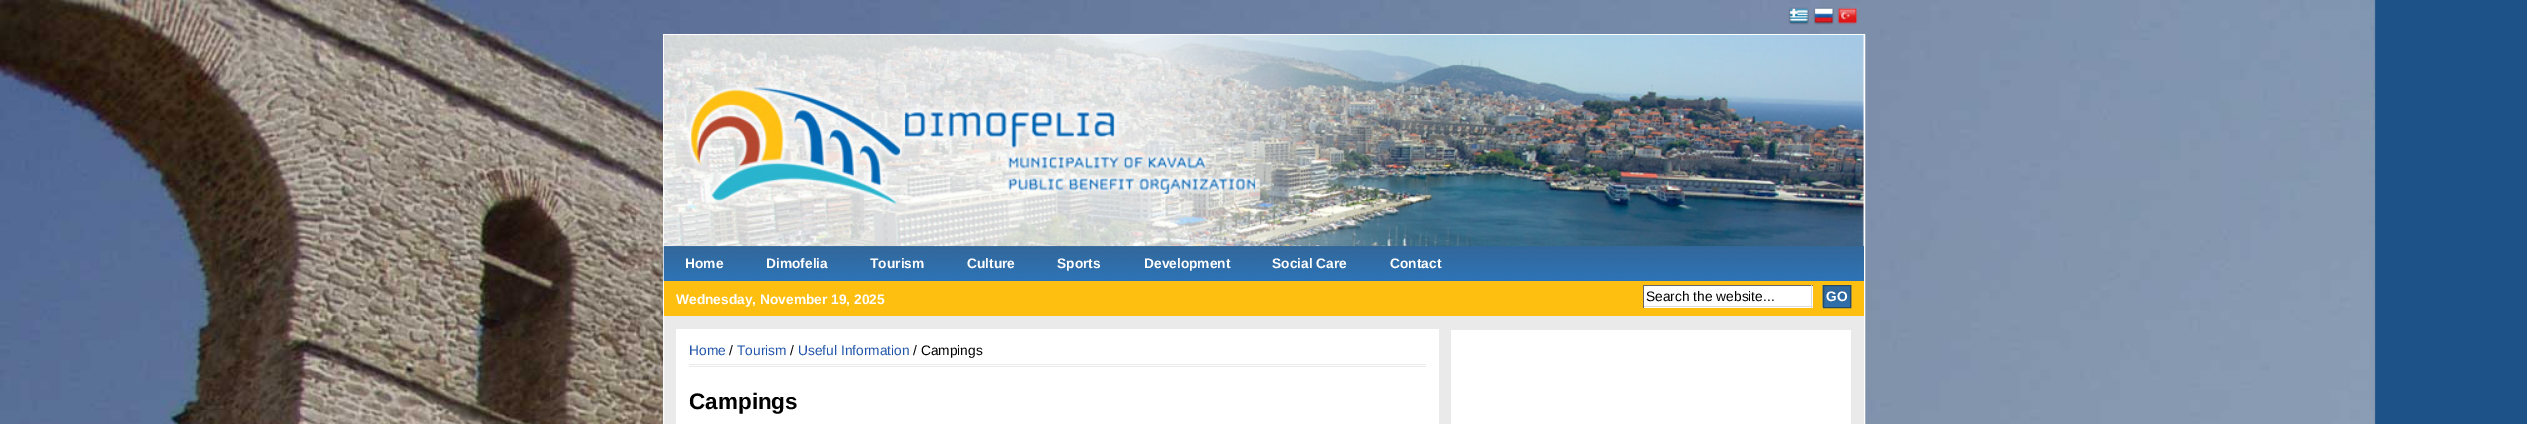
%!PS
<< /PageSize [2527 424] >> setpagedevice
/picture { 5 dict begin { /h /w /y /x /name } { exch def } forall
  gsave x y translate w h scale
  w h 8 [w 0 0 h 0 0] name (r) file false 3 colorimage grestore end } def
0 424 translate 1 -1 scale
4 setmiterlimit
0.11 0.322 0.529 setrgbcolor
0 0 2527 424 rectfill
(img1.rgb) 0 0 2376 424 picture
(img2.rgb) 1788 7 21 18 picture
(img3.rgb) 1813 7 21 18 picture
(img4.rgb) 1837 7 21 18 picture
0.918 setgray
664 316 1200 108 rectfill
1 setgray
663.5 34.5 1201 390 rectstroke
1863 35 1 211 rectfill
0.2 0.4 0.6 setrgbcolor
664 246 1200 35 rectfill
(img6.rgb) 663 246 1201 36 picture
(img5.rgb) 664 35 1200 212 picture
/LiberationSans-Bold [13.75 0 0 -13.75 0 0] selectfont
1 setgray
685 268 moveto (Home) show
766 268 moveto (Dimofelia) show
870 268 moveto (Tourism) show
967 268 moveto (Culture) show
1057 268 moveto (Sports) show
1144 268 moveto (Development) show
1272 268 moveto (Social Care) show
1390 268 moveto (Contact) show
1 0.749 0.063 setrgbcolor
664 281 1200 35 rectfill
1 setgray
676 304 moveto (Wednesday, November 19, 2025) show
1644 286 169 22 rectfill
0.4 setgray
1643 285 170 1 rectfill
0.867 setgray
1811 285 1 23 rectfill
1643 306 170 1 rectfill
0.4 setgray
1643 285 1 23 rectfill
/LiberationSans-Regular [13.75 0 0 -13.75 0 0] selectfont
0 setgray
1646 301 moveto (Search the website...) show
(img7.rgb) 1822 285 30 23 picture
0.137 0.294 0.412 setrgbcolor
1823.5 285.5 27 22 rectstroke
/LiberationSans-Bold [13.75 0 0 -13.75 0 0] selectfont
1 setgray
1826 301 moveto (GO) show
676 329 763 95 rectfill
0.918 setgray
689 364 737 1 rectfill
689 366 737 1 rectfill
/LiberationSans-Regular [13.75 0 0 -13.75 0 0] selectfont
0.133 0.333 0.667 setrgbcolor
689 355 moveto (Home) show
0 setgray
729 355 moveto (/) show
0.133 0.333 0.667 setrgbcolor
737 355 moveto (Tourism) show
0 setgray
790 355 moveto (/) show
0.133 0.333 0.667 setrgbcolor
798 355 moveto (Useful Information) show
0 setgray
913 355 moveto (/ Campings) show
/LiberationSans-Bold [22.5 0 0 -22.5 0 0] selectfont
689 409 moveto (Campings) show
1 setgray
1451 330 400 94 rectfill
showpage
